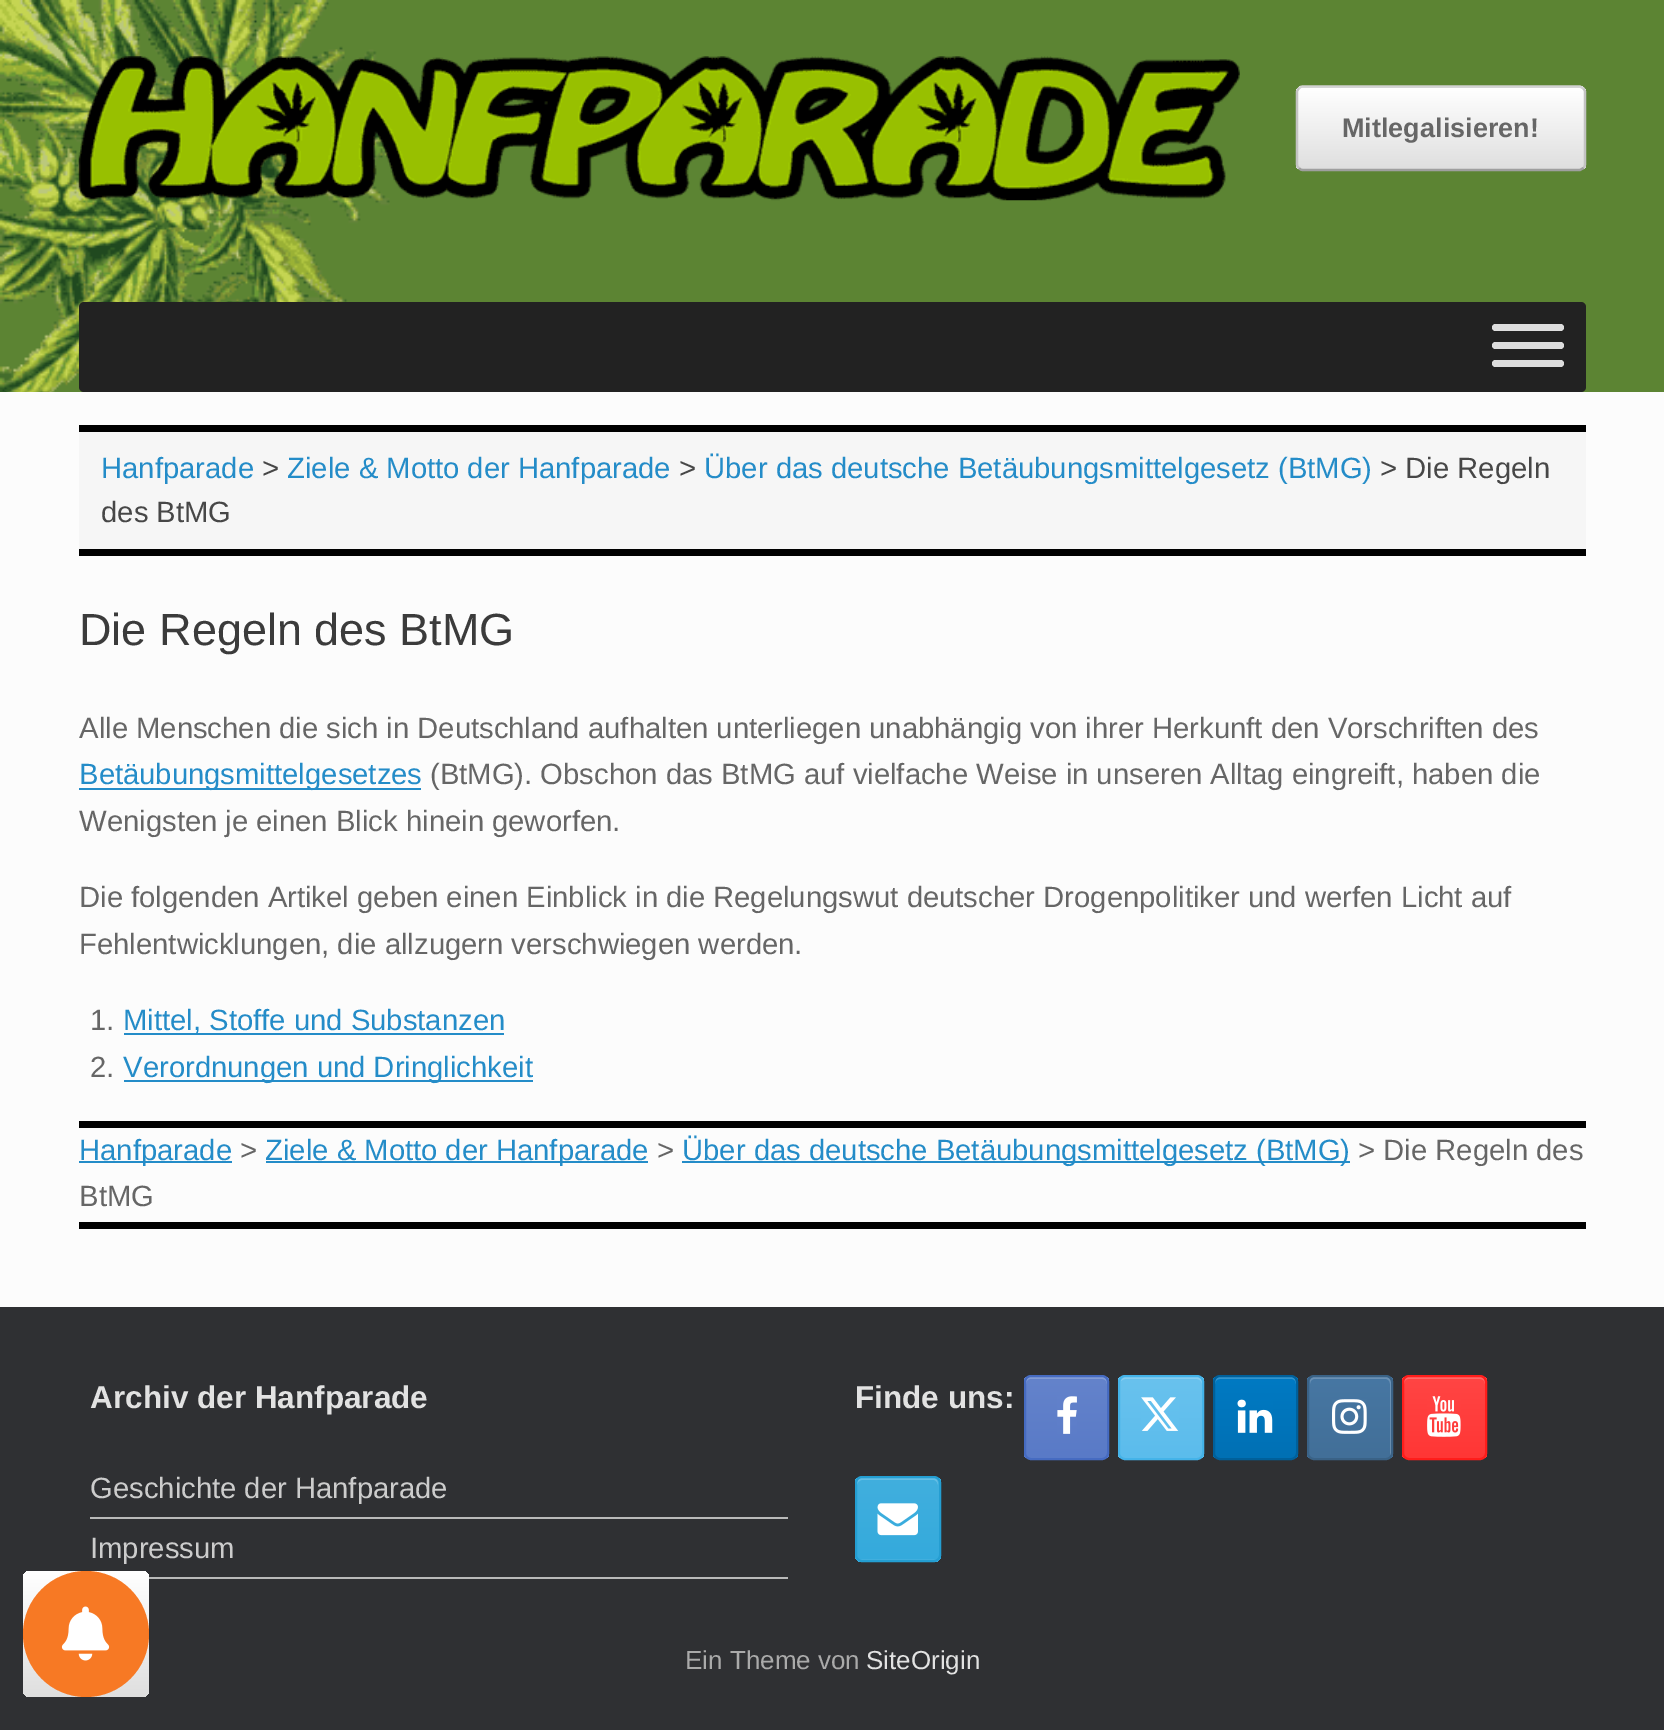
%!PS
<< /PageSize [1664 1730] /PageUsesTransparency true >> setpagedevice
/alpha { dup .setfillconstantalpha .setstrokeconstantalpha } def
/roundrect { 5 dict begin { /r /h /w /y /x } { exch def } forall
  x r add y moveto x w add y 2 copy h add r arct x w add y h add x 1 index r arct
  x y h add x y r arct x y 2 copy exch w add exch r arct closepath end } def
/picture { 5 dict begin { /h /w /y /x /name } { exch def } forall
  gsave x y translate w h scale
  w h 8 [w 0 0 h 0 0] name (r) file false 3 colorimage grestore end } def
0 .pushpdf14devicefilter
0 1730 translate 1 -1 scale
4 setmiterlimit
0.361 0.518 0.2 setrgbcolor
0 0 1664 1730 rectfill
(img1.rgb) 0 0 493 392 picture
(img2.rgb) 78 56 1162 145 picture
gsave
1296 86 290 85 7 roundrect clip newpath
gsave newpath 1296 86 moveto 1586 86 lineto 1586 88 lineto 1296 88 lineto closepath clip newpath
<< /ShadingType 2 /ColorSpace /DeviceRGB /Coords [1298 88 1298 6.8] /Extend [true true] /Function << /FunctionType 2 /Domain [0 1] /C0 [0.875 0.875 0.875] /C1 [1 1 1] /N 1 >> >> shfill grestore
gsave newpath 1296 88 moveto 1586 88 lineto 1586 169 lineto 1296 169 lineto closepath clip newpath
<< /ShadingType 2 /ColorSpace /DeviceRGB /Coords [1298 169 1298 88] /Extend [true true] /Function << /FunctionType 2 /Domain [0 1] /C0 [0.875 0.875 0.875] /C1 [1 1 1] /N 1 >> >> shfill grestore
grestore
0.824 setgray
2.2 setlinewidth
newpath 1299 88.5 moveto 1300 87 1301.5 86.5 1303 86.5 curveto 1580 86.5 lineto 1583.5 88.5 lineto stroke
0.765 setgray
newpath 1583.5 88.5 moveto 1584.5 89.5 1585 91 1585 92 curveto 1585 164 lineto 1585 165.5 1584.5 167 1583.5 168 curveto stroke
0.624 setgray
newpath 1583.5 168 moveto 1580 170 lineto 1303 170 lineto 1301.5 170 1300 169.5 1299 168 curveto stroke
0.765 setgray
newpath 1299 168 moveto 1297.5 167 1297 165.5 1297 164 curveto 1297 92 lineto 1297 91 1297.5 89.5 1299 88.5 curveto stroke
/LiberationSans-Bold [27 0 0 -27 0 0] selectfont
0.4 setgray
1342 137 moveto (Mitlegalisieren!) show
0.133 setgray
79 302 1507 90 5 roundrect fill
0.867 setgray
1492 324 72 7 3.5 roundrect fill
1492 342 72 7 3.5 roundrect fill
1492 360 72 7 3.5 roundrect fill
0.988 setgray
0 392 1664 915 rectfill
0.965 setgray
79 432 1507 117 rectfill
0 setgray
79 425 1507 7 rectfill
79 549 1507 7 rectfill
/LiberationSans-Regular [29.25 0 0 -29.25 0 0] selectfont
0.141 0.549 0.784 setrgbcolor
101 478 moveto (Hanfparade) show
0.278 setgray
262 478 moveto (>) show
0.141 0.549 0.784 setrgbcolor
287 478 moveto (Ziele & Motto der Hanfparade) show
0.278 setgray
679 478 moveto (>) show
0.141 0.549 0.784 setrgbcolor
704 478 moveto (Über das deutsche Betäubungsmittelgesetz \(BtMG\)) show
0.278 setgray
1380 478 moveto (> Die Regeln) show
101 522 moveto (des BtMG) show
/LiberationSans-Regular [45 0 0 -45 0 0] selectfont
0.231 setgray
79 645 moveto (Die Regeln des BtMG) show
/LiberationSans-Regular [29.25 0 0 -29.25 0 0] selectfont
0.4 setgray
79 738 moveto (Alle Menschen die sich in Deutschland aufhalten unterliegen unabhängig von ihrer Herkunft den Vorschriften des) show
0.141 0.549 0.784 setrgbcolor
79 788 342 2 rectfill
79 784 moveto (Betäubungsmittelgesetzes) show
0.4 setgray
430 784 moveto (\(BtMG\). Obschon das BtMG auf vielfache Weise in unseren Alltag eingreift, haben die) show
79 831 moveto (Wenigsten je einen Blick hinein geworfen.) show
79 907 moveto (Die folgenden Artikel geben einen Einblick in die Regelungswut deutscher Drogenpolitiker und werfen Licht auf) show
79 954 moveto (Fehlentwicklungen, die allzugern verschwiegen werden.) show
90 1030 moveto (1.) show
0.141 0.549 0.784 setrgbcolor
124 1033 380 2 rectfill
123 1030 moveto (Mittel, Stoffe und Substanzen) show
0.4 setgray
90 1077 moveto (2.) show
0.141 0.549 0.784 setrgbcolor
124 1080 409 2 rectfill
123 1077 moveto (Verordnungen und Dringlichkeit) show
0 setgray
79 1121 1507 7 rectfill
79 1222 1507 7 rectfill
0.141 0.549 0.784 setrgbcolor
79 1161 153 2 rectfill
79 1160 moveto (Hanfparade) show
0.4 setgray
240 1160 moveto (>) show
0.141 0.549 0.784 setrgbcolor
266 1161 382 2 rectfill
265 1160 moveto (Ziele & Motto der Hanfparade) show
0.4 setgray
657 1160 moveto (>) show
0.141 0.549 0.784 setrgbcolor
682 1161 668 2 rectfill
682 1160 moveto (Über das deutsche Betäubungsmittelgesetz \(BtMG\)) show
0.4 setgray
1358 1160 moveto (> Die Regeln des) show
79 1206 moveto (BtMG) show
0.184 0.188 0.2 setrgbcolor
0 1307 1664 423 rectfill
/LiberationSans-Bold [31.5 0 0 -31.5 0 0] selectfont
0.886 setgray
90 1408 moveto (Archiv der Hanfparade) show
0.725 setgray
90 1517 698 2 rectfill
/LiberationSans-Regular [29.25 0 0 -29.25 0 0] selectfont
0.8 setgray
90 1498 moveto (Geschichte der Hanfparade) show
0.725 setgray
148 1577 640 2 rectfill
0.8 setgray
90 1558 moveto (Impressum) show
/LiberationSans-Bold [31.5 0 0 -31.5 0 0] selectfont
0.886 setgray
855 1408 moveto (Finde uns:) show
gsave
1024 1375 85 85 7 roundrect clip newpath
gsave newpath 1024 1377 moveto 1109 1377 lineto 1109 1458 lineto 1024 1458 lineto closepath clip newpath
<< /ShadingType 2 /ColorSpace /DeviceRGB /Coords [1067 1458 1067 1377] /Extend [true true] /Function << /FunctionType 2 /Domain [0 1] /C0 [0.349 0.478 0.78] /C1 [0.392 0.514 0.796] /N 1 >> >> shfill grestore
grestore
0.514 0.612 0.835 setrgbcolor
newpath 1030 1379 moveto 1102 1379 lineto 1105 1379 1107 1381 1107 1384 curveto 1107 1374 1098 1377 1090 1377 curveto 1043 1377 lineto 1035 1377 1026 1374 1026 1384 curveto 1026 1381 1028 1379 1030 1379 curveto closepath fill
0.275 0.42 0.757 setrgbcolor
2 setlinewidth
1025 1376 83 83 6 roundrect stroke
(img3.rgb) 1057 1396 20 38 picture
gsave
1118 1375 86 85 7 roundrect clip newpath
gsave newpath 1118 1377 moveto 1204 1377 lineto 1204 1458 lineto 1118 1458 lineto closepath clip newpath
<< /ShadingType 2 /ColorSpace /DeviceRGB /Coords [1161 1458 1161 1377] /Extend [true true] /Function << /FunctionType 2 /Domain [0 1] /C0 [0.357 0.737 0.925] /C1 [0.412 0.761 0.933] /N 1 >> >> shfill grestore
grestore
0.529 0.808 0.945 setrgbcolor
newpath 1125 1379 moveto 1197 1379 lineto 1199 1379 1202 1381 1202 1384 curveto 1202 1382 lineto 1202 1379 1200 1377 1197 1377 curveto 1126 1377 lineto 1124 1377 1122 1379 1121 1381 curveto 1122 1380 1124 1379 1125 1379 curveto closepath fill
0.267 0.702 0.914 setrgbcolor
1119 1376 84 83 6 roundrect stroke
(img4.rgb) 1141 1397 38 34 picture
gsave
1213 1375 85 85 7 roundrect clip newpath
gsave newpath 1213 1377 moveto 1298 1377 lineto 1298 1458 lineto 1213 1458 lineto closepath clip newpath
<< /ShadingType 2 /ColorSpace /DeviceRGB /Coords [1256 1458 1256 1377] /Extend [true true] /Function << /FunctionType 2 /Domain [0 1] /C0 [0 0.439 0.706] /C1 [0 0.478 0.765] /N 1 >> >> shfill grestore
grestore
0.2 0.584 0.812 setrgbcolor
newpath 1220 1379 moveto 1292 1379 lineto 1294 1379 1296 1381 1296 1384 curveto 1296 1374 1287 1377 1279 1377 curveto 1232 1377 lineto 1224 1377 1215 1374 1215 1384 curveto 1215 1381 1217 1379 1220 1379 curveto closepath fill
0 0.376 0.608 setrgbcolor
1214 1376 83 83 6 roundrect stroke
(img5.rgb) 1237 1399 36 34 picture
gsave
1307 1375 86 85 7 roundrect clip newpath
gsave newpath 1307 1377 moveto 1393 1377 lineto 1393 1458 lineto 1307 1458 lineto closepath clip newpath
<< /ShadingType 2 /ColorSpace /DeviceRGB /Coords [1350 1458 1350 1377] /Extend [true true] /Function << /FunctionType 2 /Domain [0 1] /C0 [0.259 0.435 0.596] /C1 [0.278 0.467 0.639] /N 1 >> >> shfill grestore
grestore
0.2 alpha
1 setgray
newpath 1314 1379 moveto 1386 1379 lineto 1388 1379 1390 1381 1390 1384 curveto 1390 1456 lineto 1391 1455 1391 1454 1391 1453 curveto 1391 1382 lineto 1391 1379 1389 1377 1386 1377 curveto 1315 1377 lineto 1312 1377 1310 1379 1310 1382 curveto 1310 1384 lineto 1310 1381 1312 1379 1314 1379 curveto closepath fill
1 alpha
0.227 0.384 0.525 setrgbcolor
1308 1376 84 83 6 roundrect stroke
(img6.rgb) 1332 1399 35 35 picture
gsave
1402 1375 85 85 7 roundrect clip newpath
gsave newpath 1402 1377 moveto 1487 1377 lineto 1487 1458 lineto 1402 1458 lineto closepath clip newpath
<< /ShadingType 2 /ColorSpace /DeviceRGB /Coords [1445 1458 1445 1377] /Extend [true true] /Function << /FunctionType 2 /Domain [0 1] /C0 [1 0.212 0.208] /C1 [1 0.271 0.267] /N 1 >> >> shfill grestore
grestore
1 0.416 0.412 setrgbcolor
newpath 1408 1379 moveto 1480 1379 lineto 1483 1379 1485 1381 1485 1384 curveto 1485 1374 1476 1377 1468 1377 curveto 1421 1377 lineto 1413 1377 1404 1374 1404 1384 curveto 1404 1381 1406 1379 1408 1379 curveto closepath fill
1 0.114 0.106 setrgbcolor
1403 1376 83 83 6 roundrect stroke
(img7.rgb) 1427 1396 34 41 picture
gsave
855 1476 86 86 7 roundrect clip newpath
gsave newpath 855 1478 moveto 941 1478 lineto 941 1559 lineto 855 1559 lineto closepath clip newpath
<< /ShadingType 2 /ColorSpace /DeviceRGB /Coords [898 1559 898 1478] /Extend [true true] /Function << /FunctionType 2 /Domain [0 1] /C0 [0.204 0.667 0.863] /C1 [0.255 0.686 0.871] /N 1 >> >> shfill grestore
gsave newpath 855 1559 moveto 941 1559 lineto 941 1562 lineto 855 1562 lineto closepath clip newpath
<< /ShadingType 2 /ColorSpace /DeviceRGB /Coords [898 1640 898 1559] /Extend [true true] /Function << /FunctionType 2 /Domain [0 1] /C0 [0.204 0.667 0.863] /C1 [0.255 0.686 0.871] /N 1 >> >> shfill grestore
grestore
0.404 0.749 0.898 setrgbcolor
newpath 862 1480 moveto 934 1480 lineto 936 1480 938 1483 938 1485 curveto 938 1475 929 1478 921 1478 curveto 874 1478 lineto 866 1478 857 1475 857 1485 curveto 857 1483 859 1480 862 1480 curveto closepath fill
0.141 0.62 0.824 setrgbcolor
856 1477 84 84 6 roundrect stroke
(img8.rgb) 877 1503 41 33 picture
/LiberationSans-Regular [26 0 0 -26 0 0] selectfont
0.667 setgray
685 1669 moveto (Ein Theme von) show
0.886 setgray
866 1669 moveto (SiteOrigin) show
gsave 23 1571 126 126 7 roundrect clip newpath
<< /ShadingType 2 /ColorSpace /DeviceRGB /Coords [23 1697 23 1571] /Extend [true true] /Function << /FunctionType 2 /Domain [0 1] /C0 [0.875 0.875 0.875] /C1 [1 1 1] /N 1 >> >> shfill grestore
0.969 0.475 0.141 setrgbcolor
newpath 86 1634 63 0 360 arc closepath fill
(img9.rgb) 61 1606 49 55 picture
.poppdf14devicefilter showpage
